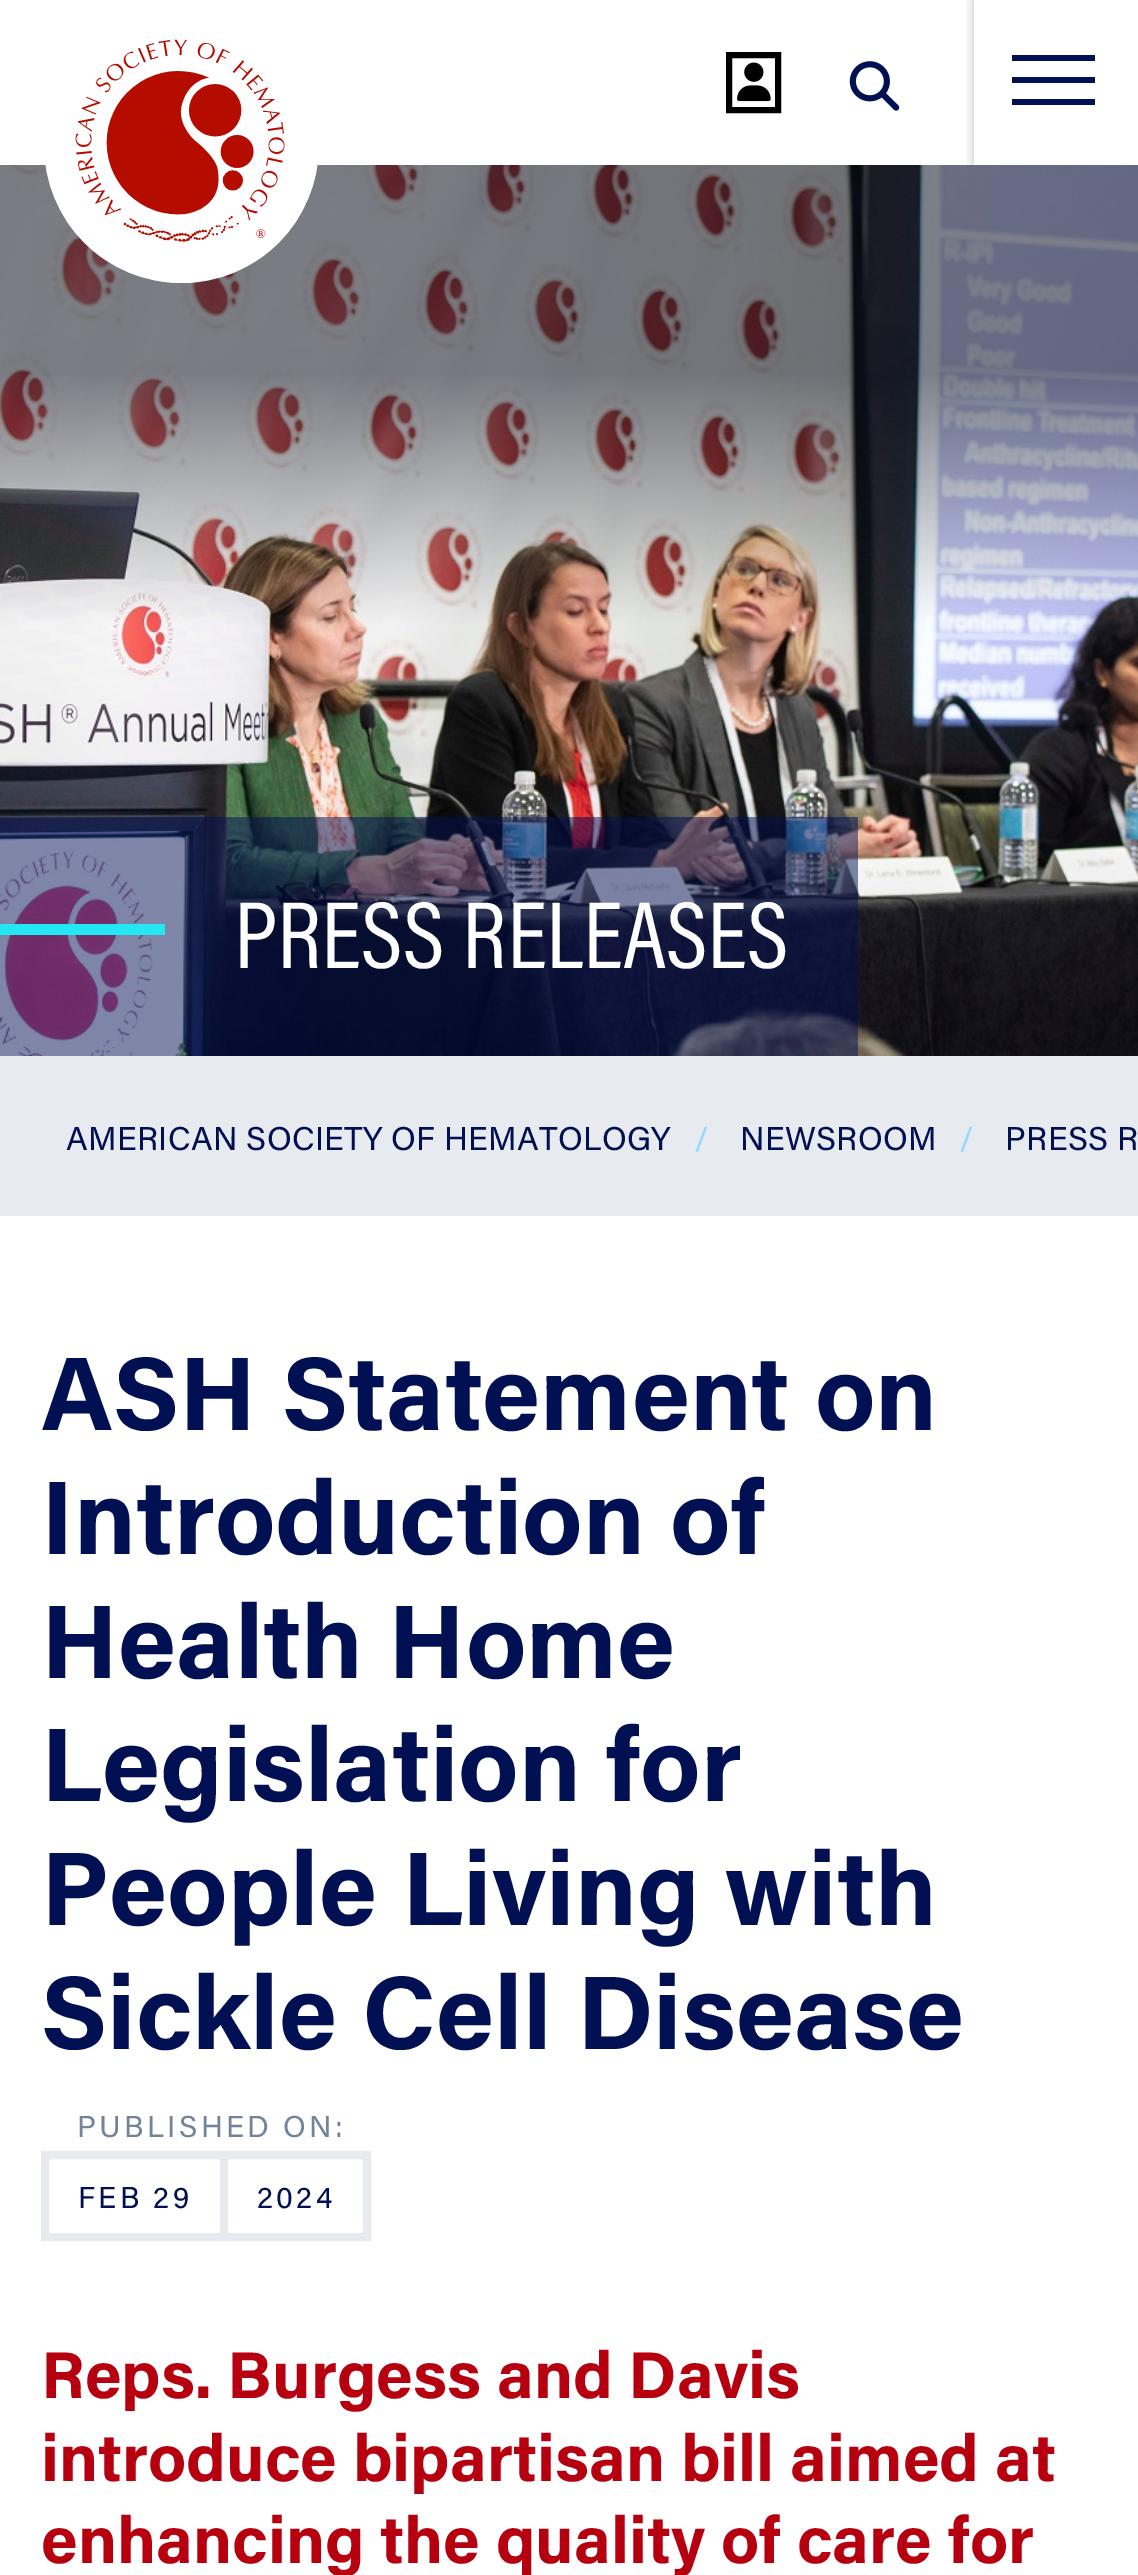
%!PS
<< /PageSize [1138 2575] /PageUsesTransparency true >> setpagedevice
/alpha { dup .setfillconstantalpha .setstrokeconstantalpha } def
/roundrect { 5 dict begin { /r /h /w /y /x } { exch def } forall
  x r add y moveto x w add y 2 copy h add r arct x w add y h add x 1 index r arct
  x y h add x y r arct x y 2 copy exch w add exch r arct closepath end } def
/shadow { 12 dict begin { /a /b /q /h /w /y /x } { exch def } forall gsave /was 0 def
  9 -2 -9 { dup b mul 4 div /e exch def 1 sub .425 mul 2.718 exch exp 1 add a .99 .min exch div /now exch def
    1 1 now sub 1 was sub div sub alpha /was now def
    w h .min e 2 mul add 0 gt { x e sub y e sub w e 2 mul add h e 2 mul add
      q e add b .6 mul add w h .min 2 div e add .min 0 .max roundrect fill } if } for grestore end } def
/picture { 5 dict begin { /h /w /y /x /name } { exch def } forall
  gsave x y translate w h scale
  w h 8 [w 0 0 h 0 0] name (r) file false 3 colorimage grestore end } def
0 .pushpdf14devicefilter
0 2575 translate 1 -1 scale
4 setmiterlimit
1 setgray
0 0 1138 2575 rectfill
gsave
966 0 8 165 rectclip
0 setgray
974 0 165 165 0 5.5 0.25 shadow
grestore
(img4.rgb) 0 165 1138 891 picture
(img1.rgb) 45 39 273 244 picture
0 setgray
6 setlinewidth
729 55 49 55 rectstroke
(img2.rgb) 737 62 34 40 picture
(img3.rgb) 849 61 51 50 picture
0.004 0.059 0.325 setrgbcolor
1012 55 83 6 rectfill
1012 77 83 6 rectfill
1012 99 83 6 rectfill
0.5 alpha
0 817 858 239 rectfill
1 alpha
0.137 0.906 0.949 setrgbcolor
0 924 165 11 rectfill
/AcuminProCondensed-Regular [96.25 0 0 -96.25 0 0] selectfont
1 setgray
234 968 moveto (PRESS RELEASES) show
0.906 0.918 0.933 setrgbcolor
0 1056 1138 160 rectfill
/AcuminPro-Regular [33 0 0 -33 0 0] selectfont
0.004 0.059 0.325 setrgbcolor
66 1150 moveto 0.3 0 (AMERICAN SOCIETY OF HEMATOLOGY) ashow
0.576 0.847 1 setrgbcolor
694 1150 moveto 0.3 0 (/) ashow
0.004 0.059 0.325 setrgbcolor
740 1150 moveto 0.3 0 (NEWSROOM) ashow
0.576 0.847 1 setrgbcolor
959 1150 moveto 0.3 0 (/) ashow
0.004 0.059 0.325 setrgbcolor
1005 1150 moveto 0.3 0 (PRESS R) ashow
/AcuminPro-Bold [104.5 0 0 -104.5 0 0] selectfont
41 1430 moveto (ASH Statement on) show
41 1554 moveto (Introduction of) show
41 1678 moveto (Health Home) show
41 1801 moveto (Legislation for) show
41 1925 moveto (People Living with) show
41 2049 moveto (Sickle Cell Disease) show
0.906 0.918 0.933 setrgbcolor
8 setlinewidth
45 2155 322 82 rectstroke
/AcuminPro-Regular [30.25 0 0 -30.25 0 0] selectfont
0.451 0.518 0.604 setrgbcolor
77 2137 moveto 3.3 0 (PUBLISHED ON:) ashow
0.004 0.059 0.325 setrgbcolor
78 2208 moveto 3.3 0 (FEB 29) ashow
0.906 0.918 0.933 setrgbcolor
220 2159 8 74 rectfill
0.004 0.059 0.325 setrgbcolor
257 2208 moveto 3.3 0 (2024) ashow
/AcuminPro-Bold [66 0 0 -66 0 0] selectfont
0.718 0 0.059 setrgbcolor
41 2398 moveto (Reps. Burgess and Davis) show
41 2481 moveto (introduce bipartisan bill aimed at) show
41 2563 moveto (enhancing the quality of care for) show
.poppdf14devicefilter showpage
